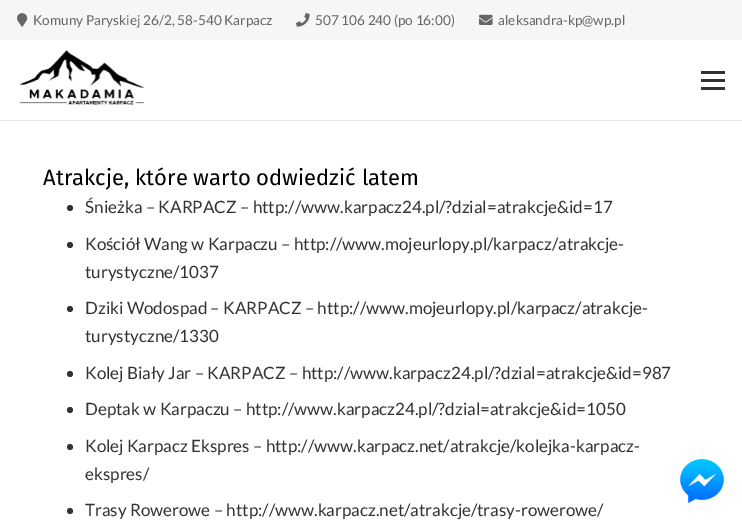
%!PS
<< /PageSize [742 521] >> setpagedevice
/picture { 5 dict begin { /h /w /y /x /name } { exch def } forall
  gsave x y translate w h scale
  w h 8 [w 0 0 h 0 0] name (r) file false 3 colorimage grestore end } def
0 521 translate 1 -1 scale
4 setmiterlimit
1 setgray
0 0 742 521 rectfill
0.965 setgray
0 0 742 40 rectfill
(img1.rgb) 17 13 11 14 picture
/Lato-Regular [13.6 0 0 -13.6 0 0] selectfont
0.4 setgray
33 25 moveto (Komuny Paryskiej 26/2, 58-540 Karpacz) show
(img2.rgb) 296 13 14 14 picture
315 25 moveto (507 106 240 \(po 16:00\)) show
(img3.rgb) 479 14 14 11 picture
498 25 moveto (aleksandra-kp@wp.pl) show
0.922 setgray
0 120 742 1 rectfill
(img4.rgb) 19 50 126 55 picture
0.2 setgray
701 79 24 3 rectfill
701 71 24 3 rectfill
701 87 24 3 rectfill
/FiraSans-Regular [22 0 0 -22 0 0] selectfont
0 setgray
43 185 moveto (Atrakcje, które warto odwiedzić latem) show
0.2 setgray
newpath 70 208 3 0 360 arc closepath fill
/Lato-Regular [17 0 0 -17 0 0] selectfont
85 213 moveto (Śnieżka – KARPACZ – http://www.karpacz24.pl/?dzial=atrakcje&id=17) show
newpath 70 245 3 0 360 arc closepath fill
85 250 moveto (Kościół Wang w Karpaczu – http://www.mojeurlopy.pl/karpacz/atrakcje-) show
85 278 moveto (turystyczne/1037) show
newpath 70 309 3 0 360 arc closepath fill
85 314 moveto (Dziki Wodospad – KARPACZ – http://www.mojeurlopy.pl/karpacz/atrakcje-) show
85 342 moveto (turystyczne/1330) show
newpath 70 374 3 0 360 arc closepath fill
85 379 moveto (Kolej Biały Jar – KARPACZ – http://www.karpacz24.pl/?dzial=atrakcje&id=987) show
newpath 70 410 3 0 360 arc closepath fill
85 415 moveto (Deptak w Karpaczu – http://www.karpacz24.pl/?dzial=atrakcje&id=1050) show
newpath 70 447 3 0 360 arc closepath fill
85 452 moveto (Kolej Karpacz Ekspres – http://www.karpacz.net/atrakcje/kolejka-karpacz-) show
85 480 moveto (ekspres/) show
newpath 70 511 3 0 360 arc closepath fill
85 516 moveto (Trasy Rowerowe – http://www.karpacz.net/atrakcje/trasy-rowerowe/) show
(img5.rgb) 679 458 46 46 picture
showpage
